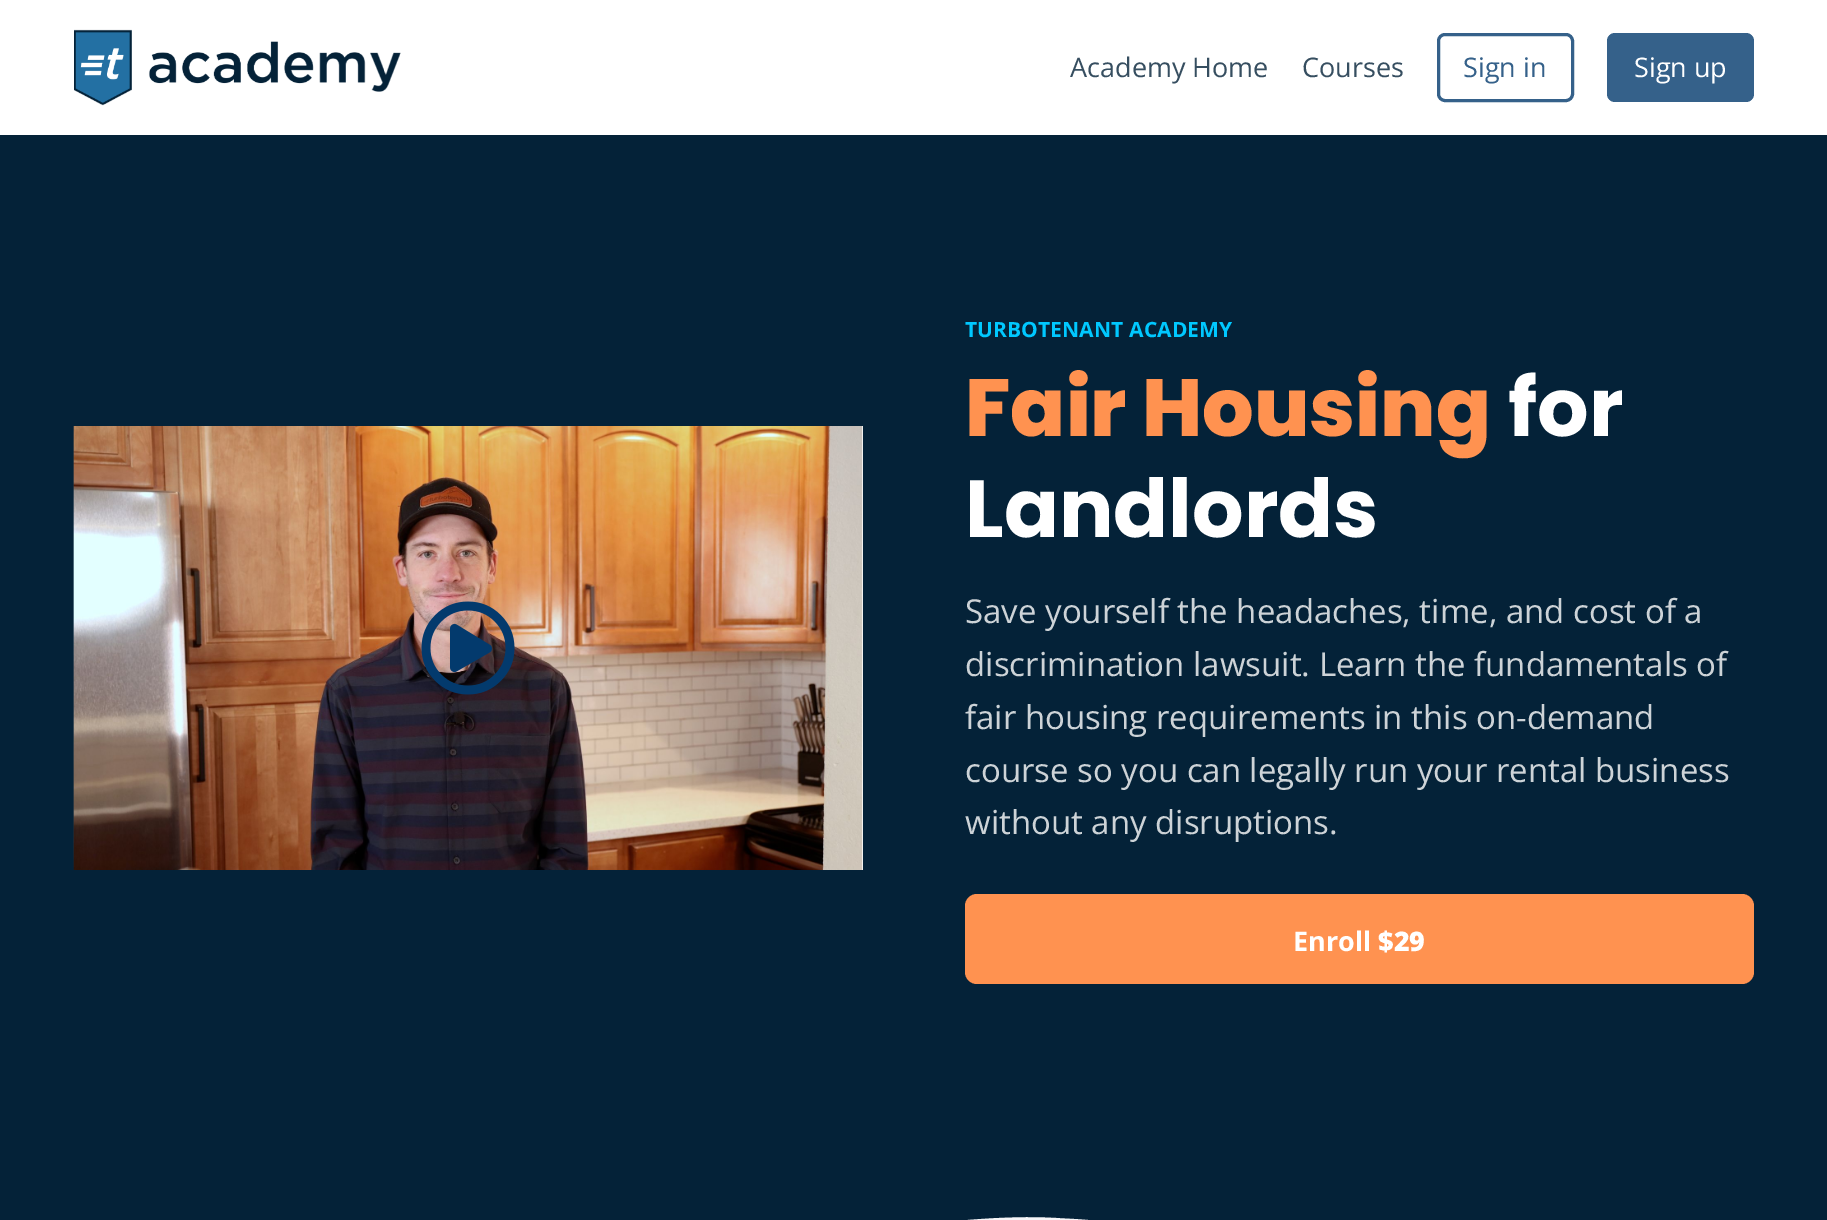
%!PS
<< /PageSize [1827 1220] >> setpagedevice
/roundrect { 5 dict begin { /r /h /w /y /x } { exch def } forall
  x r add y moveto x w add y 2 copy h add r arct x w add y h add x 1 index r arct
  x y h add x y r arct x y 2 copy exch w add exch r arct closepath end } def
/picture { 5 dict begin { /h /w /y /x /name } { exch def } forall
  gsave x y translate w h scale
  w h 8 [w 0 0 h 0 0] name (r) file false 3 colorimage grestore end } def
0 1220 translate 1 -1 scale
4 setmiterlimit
1 setgray
0 0 1827 1220 rectfill
(img1.rgb) 74 29 327 77 picture
/OpenSans-Regular [27 0 0 -27 0 0] selectfont
0.212 0.306 0.376 setrgbcolor
1070 77 moveto (Academy Home) show
1302 77 moveto (Courses) show
0.208 0.38 0.541 setrgbcolor
3 setlinewidth
1438.5 34.5 134 66 6.5 roundrect stroke
1463 77 moveto (Sign in) show
1607 33 147 69 8 roundrect fill
1 setgray
1634 77 moveto (Sign up) show
0.016 0.133 0.22 setrgbcolor
0 135 1827 1077 rectfill
(img2.rgb) 73 426 1 444 picture
1 setgray
862 426 1 444 rectfill
(img3.rgb) 73 426 790 444 picture
(img4.rgb) 421 601 94 94 picture
/OpenSans-Bold [21 0 0 -21 0 0] selectfont
0 0.784 1 setrgbcolor
965 337 moveto 0.1 0 (TURBOTENANT ACADEMY) ashow
/Poppins-ExtraBold [81 0 0 -81 0 0] selectfont
1 0.573 0.314 setrgbcolor
965 436 moveto (Fair Housing) show
/Poppins-Bold [81 0 0 -81 0 0] selectfont
1 setgray
1508 436 moveto (for) show
965 537 moveto (Landlords) show
/OpenSans-Regular [33 0 0 -33 0 0] selectfont
0.804 0.827 0.843 setrgbcolor
965 623 moveto (Save yourself the headaches, time, and cost of a) show
965 676 moveto (discrimination lawsuit. Learn the fundamentals of) show
965 729 moveto (fair housing requirements in this on-demand) show
965 782 moveto (course so you can legally run your rental business) show
965 834 moveto (without any disruptions.) show
1 0.573 0.314 setrgbcolor
965 894 789 90 12 roundrect fill
/OpenSans-Bold [27 0 0 -27 0 0] selectfont
1 setgray
1293 951 moveto (Enroll) show
/OpenSans-ExtraBold [27 0 0 -27 0 0] selectfont
1378 951 moveto ($29) show
0.965 0.965 0.973 setrgbcolor
965 1217 126 3 rectfill
gsave
0 1212 1827 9 rectclip
0.016 0.133 0.22 setrgbcolor
newpath 1060 1218 moveto 1018 1215 964 1219 918 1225 curveto 874 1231 785 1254 729 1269 curveto 587 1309 478 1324 367 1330 curveto 322 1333 275 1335 172 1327 curveto 69 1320 -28 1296 -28 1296 curveto -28 1210 lineto 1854 1210 lineto 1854 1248 lineto 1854 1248 1719 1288 1556 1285 curveto 1483 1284 1382 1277 1304 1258 curveto 1264 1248 1206 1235 1154 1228 curveto 1103 1220 1080 1219 1060 1218 curveto closepath fill
grestore
showpage
